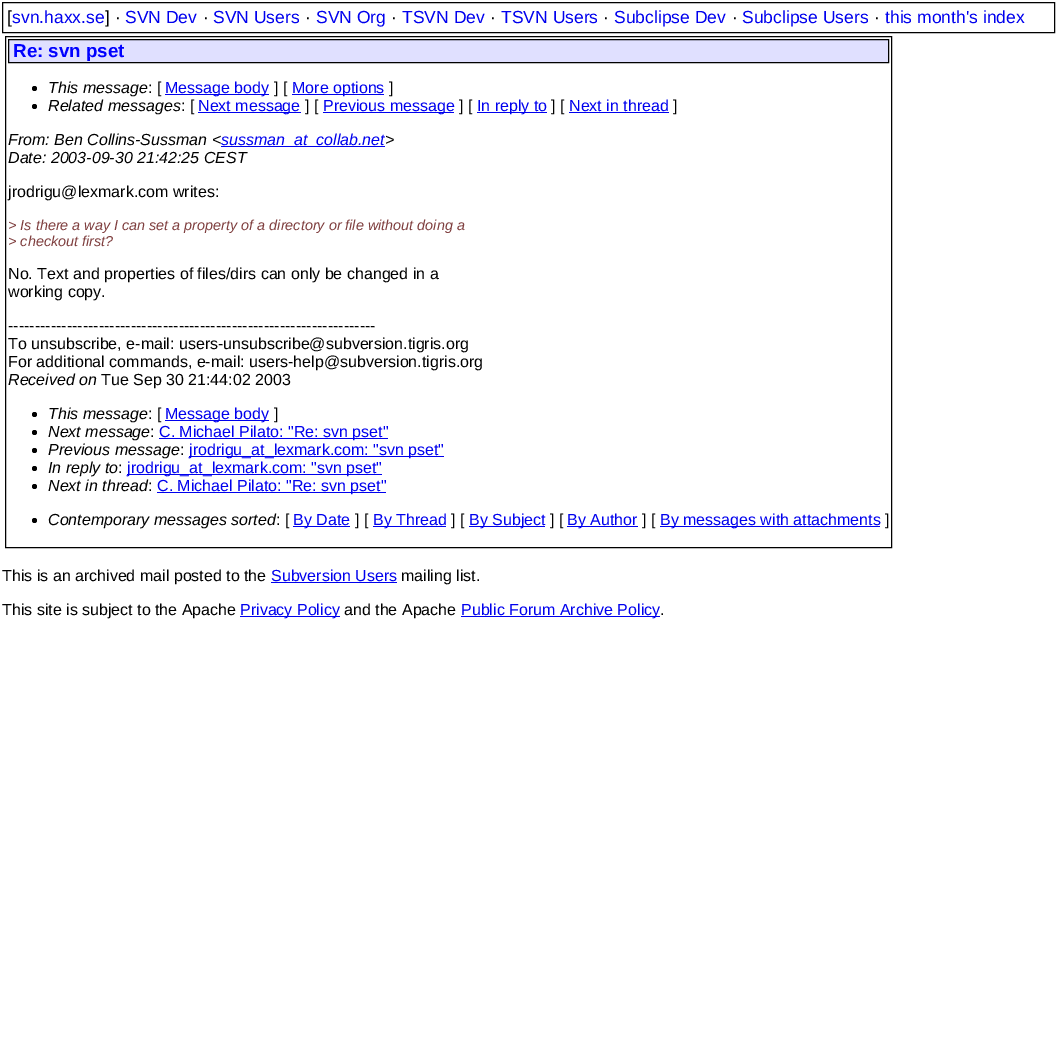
%!PS
<< /PageSize [1057 1057] >> setpagedevice
0 1057 translate 1 -1 scale
4 setmiterlimit
1 setgray
0 0 1057 1057 rectfill
0 setgray
2.5 2.5 1052 30 rectstroke
/LiberationSans-Regular [17.5 0 0 -17.5 0 0] selectfont
7 23 moveto ([) show
0 0 0.933 setrgbcolor
12 23 moveto (svn.haxx.se) show
0 setgray
105 23 moveto (] ·) show
0 0 0.933 setrgbcolor
125 23 moveto (SVN Dev) show
0 setgray
203 23 moveto (·) show
0 0 0.933 setrgbcolor
213 23 moveto (SVN Users) show
0 setgray
305 23 moveto (·) show
0 0 0.933 setrgbcolor
316 23 moveto (SVN Org) show
0 setgray
391 23 moveto (·) show
0 0 0.933 setrgbcolor
402 23 moveto (TSVN Dev) show
0 setgray
490 23 moveto (·) show
0 0 0.933 setrgbcolor
501 23 moveto (TSVN Users) show
0 setgray
603 23 moveto (·) show
0 0 0.933 setrgbcolor
614 23 moveto (Subclipse Dev) show
0 setgray
732 23 moveto (·) show
0 0 0.933 setrgbcolor
742 23 moveto (Subclipse Users) show
0 setgray
874 23 moveto (·) show
0 0 0.933 setrgbcolor
885 23 moveto (this month's index) show
0 setgray
5.5 36.5 886 511 rectstroke
0.878 0.878 1 setrgbcolor
newpath 8.5 39.5 moveto 888.5 39.5 lineto 888.5 62.5 lineto 8.5 62.5 lineto closepath gsave fill grestore
0 setgray
stroke
/LiberationSans-Bold [18.75 0 0 -18.75 0 0] selectfont
0 0 1 setrgbcolor
13 57 moveto (Re: svn pset) show
0 setgray
newpath 34.5 88.5 2.5 0 360 arc closepath fill
/LiberationSans-Italic [16 0 0 -16 0 0] selectfont
48 93 moveto (This message) show
/LiberationSans-Regular [16 0 0 -16 0 0] selectfont
148 93 moveto (: [) show
0 0 0.933 setrgbcolor
165 94 104 1 rectfill
165 93 moveto (Message body) show
0 setgray
274 93 moveto (] [) show
0 0 0.933 setrgbcolor
292 94 92 1 rectfill
292 93 moveto (More options) show
0 setgray
389 93 moveto (]) show
newpath 34.5 106.5 2.5 0 360 arc closepath fill
/LiberationSans-Italic [16 0 0 -16 0 0] selectfont
48 111 moveto (Related messages) show
/LiberationSans-Regular [16 0 0 -16 0 0] selectfont
181 111 moveto (: [) show
0 0 0.933 setrgbcolor
198 112 103 1 rectfill
198 111 moveto (Next message) show
0 setgray
305 111 moveto (] [) show
0 0 0.933 setrgbcolor
323 112 131 1 rectfill
323 111 moveto (Previous message) show
0 setgray
459 111 moveto (] [) show
0 0 0.933 setrgbcolor
477 112 70 1 rectfill
477 111 moveto (In reply to) show
0 setgray
551 111 moveto (] [) show
0 0 0.933 setrgbcolor
569 111 moveto (Next in thread) show
569 112 100 1 rectfill
0 setgray
673 111 moveto (]) show
/LiberationSans-Italic [16 0 0 -16 0 0] selectfont
8 145 moveto (From: Ben Collins-Sussman <) show
0 0 0.933 setrgbcolor
221 146 164 1 rectfill
221 145 moveto (sussman_at_collab.net) show
0 setgray
385 145 moveto (>) show
8 163 moveto (Date: 2003-09-30 21:42:25 CEST) show
/LiberationSans-Regular [16 0 0 -16 0 0] selectfont
8 197 moveto (jrodrigu@lexmark.com writes:) show
/LiberationSans-Italic [14.4 0 0 -14.4 0 0] selectfont
0.502 0.251 0.251 setrgbcolor
8 230 moveto (> Is there a way I can set a property of a directory or file without doing a) show
8 246 moveto (> checkout first?) show
/LiberationSans-Regular [16 0 0 -16 0 0] selectfont
0 setgray
8 279 moveto (No. Text and properties of files/dirs can only be changed in a) show
8 297 moveto (working copy.) show
8 331 moveto (---------------------------------------------------------------------) show
8 349 moveto (To unsubscribe, e-mail: users-unsubscribe@subversion.tigris.org) show
8 367 moveto (For additional commands, e-mail: users-help@subversion.tigris.org) show
/LiberationSans-Italic [16 0 0 -16 0 0] selectfont
8 385 moveto (Received on) show
/LiberationSans-Regular [16 0 0 -16 0 0] selectfont
101 385 moveto (Tue Sep 30 21:44:02 2003) show
newpath 34.5 414.5 2.5 0 360 arc closepath fill
/LiberationSans-Italic [16 0 0 -16 0 0] selectfont
48 419 moveto (This message) show
/LiberationSans-Regular [16 0 0 -16 0 0] selectfont
148 419 moveto (: [) show
0 0 0.933 setrgbcolor
165 420 104 1 rectfill
165 419 moveto (Message body) show
0 setgray
274 419 moveto (]) show
newpath 34.5 432.5 2.5 0 360 arc closepath fill
/LiberationSans-Italic [16 0 0 -16 0 0] selectfont
48 437 moveto (Next message) show
/LiberationSans-Regular [16 0 0 -16 0 0] selectfont
150 437 moveto (:) show
0 0 0.933 setrgbcolor
159 438 229 1 rectfill
159 437 moveto (C. Michael Pilato: "Re: svn pset") show
0 setgray
newpath 34.5 450.5 2.5 0 360 arc closepath fill
/LiberationSans-Italic [16 0 0 -16 0 0] selectfont
48 455 moveto (Previous message) show
/LiberationSans-Regular [16 0 0 -16 0 0] selectfont
180 455 moveto (:) show
0 0 0.933 setrgbcolor
189 456 255 1 rectfill
189 455 moveto (jrodrigu_at_lexmark.com: "svn pset") show
0 setgray
newpath 34.5 468.5 2.5 0 360 arc closepath fill
/LiberationSans-Italic [16 0 0 -16 0 0] selectfont
48 473 moveto (In reply to) show
/LiberationSans-Regular [16 0 0 -16 0 0] selectfont
118 473 moveto (:) show
0 0 0.933 setrgbcolor
127 474 255 1 rectfill
127 473 moveto (jrodrigu_at_lexmark.com: "svn pset") show
0 setgray
newpath 34.5 486.5 2.5 0 360 arc closepath fill
/LiberationSans-Italic [16 0 0 -16 0 0] selectfont
48 491 moveto (Next in thread) show
/LiberationSans-Regular [16 0 0 -16 0 0] selectfont
148 491 moveto (:) show
0 0 0.933 setrgbcolor
157 492 229 1 rectfill
157 491 moveto (C. Michael Pilato: "Re: svn pset") show
0 setgray
newpath 34.5 520.5 2.5 0 360 arc closepath fill
/LiberationSans-Italic [16 0 0 -16 0 0] selectfont
48 525 moveto (Contemporary messages sorted) show
/LiberationSans-Regular [16 0 0 -16 0 0] selectfont
276 525 moveto (: [) show
0 0 0.933 setrgbcolor
293 526 57 1 rectfill
293 525 moveto (By Date) show
0 setgray
355 525 moveto (] [) show
0 0 0.933 setrgbcolor
373 526 73 1 rectfill
373 525 moveto (By Thread) show
0 setgray
451 525 moveto (] [) show
0 0 0.933 setrgbcolor
469 526 76 1 rectfill
469 525 moveto (By Subject) show
0 setgray
550 525 moveto (] [) show
0 0 0.933 setrgbcolor
567 526 71 1 rectfill
567 525 moveto (By Author) show
0 setgray
642 525 moveto (] [) show
0 0 0.933 setrgbcolor
660 526 220 1 rectfill
660 525 moveto (By messages with attachments) show
0 setgray
885 525 moveto (]) show
2 581 moveto (This is an archived mail posted to the) show
0 0 0.933 setrgbcolor
271 581 moveto (Subversion Users) show
271 582 126 1 rectfill
0 setgray
401 581 moveto (mailing list.) show
2 615 moveto (This site is subject to the Apache) show
0 0 0.933 setrgbcolor
240 616 100 1 rectfill
240 615 moveto (Privacy Policy) show
0 setgray
344 615 moveto (and the Apache) show
0 0 0.933 setrgbcolor
461 616 199 1 rectfill
461 615 moveto (Public Forum Archive Policy) show
0 setgray
660 615 moveto (.) show
showpage
